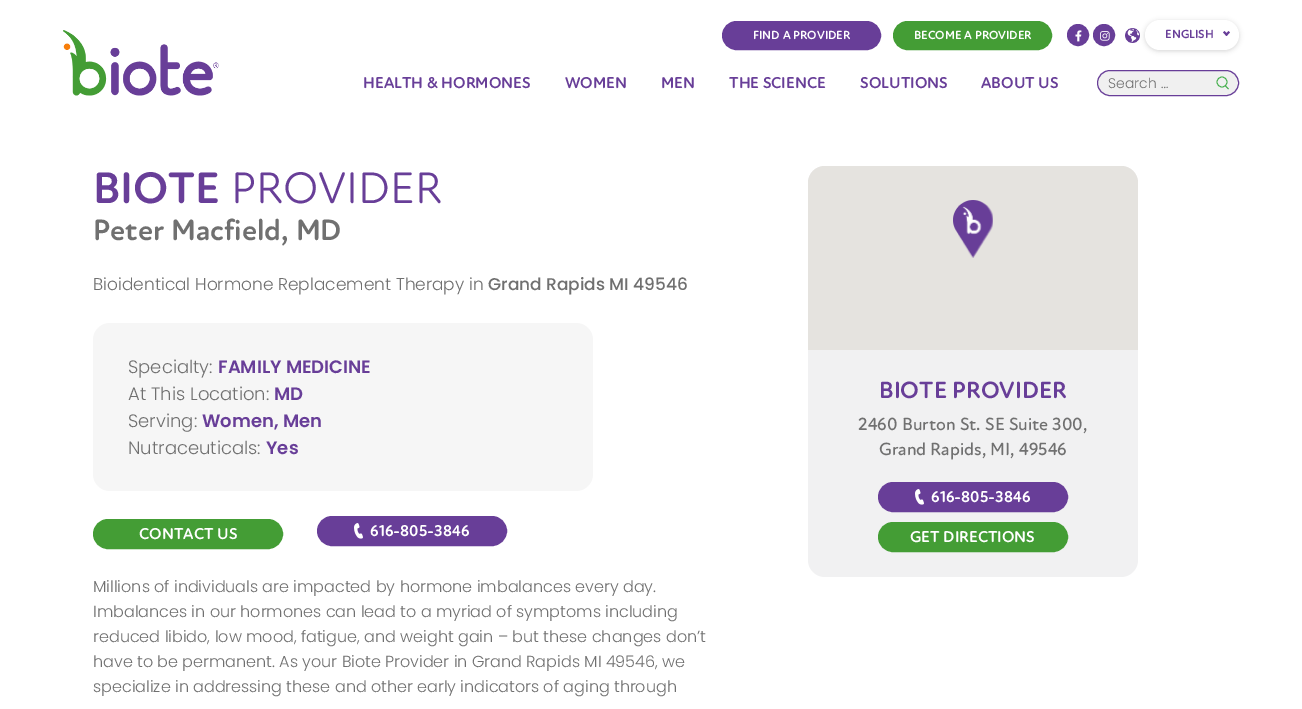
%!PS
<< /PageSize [1302 709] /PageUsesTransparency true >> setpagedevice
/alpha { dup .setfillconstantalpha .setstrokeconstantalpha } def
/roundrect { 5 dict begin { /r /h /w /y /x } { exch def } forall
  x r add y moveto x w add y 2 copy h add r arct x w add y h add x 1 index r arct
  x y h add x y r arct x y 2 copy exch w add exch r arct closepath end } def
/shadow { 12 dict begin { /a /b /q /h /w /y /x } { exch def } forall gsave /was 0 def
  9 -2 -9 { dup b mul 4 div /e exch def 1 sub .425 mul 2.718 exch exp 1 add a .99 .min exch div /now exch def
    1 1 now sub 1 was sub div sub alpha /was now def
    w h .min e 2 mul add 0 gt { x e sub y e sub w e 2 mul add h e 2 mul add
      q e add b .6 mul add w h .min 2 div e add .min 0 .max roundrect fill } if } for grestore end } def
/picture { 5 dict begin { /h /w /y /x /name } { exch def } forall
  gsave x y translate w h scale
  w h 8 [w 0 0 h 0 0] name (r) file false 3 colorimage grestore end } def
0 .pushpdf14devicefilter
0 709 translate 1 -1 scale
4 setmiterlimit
1 setgray
0 0 1302 709 rectfill
(img1.rgb) 63 30 156 66 picture
0.408 0.243 0.596 setrgbcolor
723.5 22.5 156 26 13 roundrect gsave fill grestore
3 setlinewidth
stroke
/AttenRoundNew-Bold [12 0 0 -12 0 0] selectfont
1 setgray
753 39 moveto (FIND A PROVIDER) show
0.267 0.616 0.208 setrgbcolor
894.5 22.5 156 26 13 roundrect gsave fill grestore
stroke
1 setgray
914 39 moveto (BECOME A PROVIDER) show
0.408 0.243 0.596 setrgbcolor
newpath 1078 35 10 0 360 arc closepath gsave fill grestore
2 setlinewidth
stroke
(img2.rgb) 1075 30 7 12 picture
newpath 1104 35 10 0 360 arc closepath gsave fill grestore
stroke
(img3.rgb) 1100 31 10 10 picture
(img4.rgb) 1125 28 15 15 picture
0 setgray
1145 21 94 30 15 2.5 0.16 shadow
1 setgray
1145 20 94 30 15 roundrect fill
0.408 0.243 0.596 setrgbcolor
1165 38 moveto (ENGLISH) show
newpath 1226.5 36 moveto 1223 32.5 lineto 1224.5 31 lineto 1228 34.5 lineto closepath fill
newpath 1226.5 36 moveto 1225 34.5 lineto 1228.5 31 lineto 1230 32.5 lineto closepath fill
/AttenRoundNew-Bold [16 0 0 -16 0 0] selectfont
363 88 moveto (HEALTH & HORMONES) show
565 88 moveto (WOMEN) show
661 88 moveto (MEN) show
729 88 moveto (THE SCIENCE) show
860 88 moveto (SOLUTIONS) show
981 88 moveto (ABOUT US) show
0.941 setgray
1097.5 70.5 141 25 12.5 roundrect gsave fill grestore
0.408 0.243 0.596 setrgbcolor
1 setlinewidth
stroke
/Poppins-Light [14 0 0 -14 0 0] selectfont
0.439 setgray
1108 88 moveto (Search …) show
0.251 0.678 0.282 setrgbcolor
0.8 setlinewidth
newpath 1222 82 5 0 360 arc closepath stroke
newpath 1225.5 86 moveto 1228.5 89 lineto closepath stroke
/AttenRoundNew-Bold [45 0 0 -45 0 0] selectfont
0.408 0.243 0.596 setrgbcolor
93 203 moveto (BIOTE) show
/AttenRoundNew-Regular [45 0 0 -45 0 0] selectfont
231 203 moveto (PROVIDER) show
/AttenRoundNew-Bold [30 0 0 -30 0 0] selectfont
0.439 setgray
93 240 moveto (Peter Macfield, MD) show
/Poppins-Light [17 0 0 -17 0 0] selectfont
93 290 moveto (Bioidentical Hormone Replacement Therapy in) show
/Poppins-Medium [17 0 0 -17 0 0] selectfont
488 290 moveto (Grand Rapids MI 49546) show
0.965 setgray
93 323 500 168 17 roundrect fill
/Poppins-Light [18 0 0 -18 0 0] selectfont
0.439 setgray
128 373 moveto (Specialty:) show
/Poppins-SemiBold [18 0 0 -18 0 0] selectfont
0.408 0.243 0.596 setrgbcolor
218 373 moveto (FAMILY MEDICINE) show
/Poppins-Light [18 0 0 -18 0 0] selectfont
0.439 setgray
128 400 moveto (At This Location:) show
/Poppins-SemiBold [18 0 0 -18 0 0] selectfont
0.408 0.243 0.596 setrgbcolor
274 400 moveto (MD) show
/Poppins-Light [18 0 0 -18 0 0] selectfont
0.439 setgray
128 427 moveto (Serving:) show
/Poppins-SemiBold [18 0 0 -18 0 0] selectfont
0.408 0.243 0.596 setrgbcolor
202 427 moveto (Women, Men) show
/Poppins-Light [18 0 0 -18 0 0] selectfont
0.439 setgray
128 454 moveto (Nutraceuticals:) show
/Poppins-SemiBold [18 0 0 -18 0 0] selectfont
0.408 0.243 0.596 setrgbcolor
266 454 moveto (Yes) show
0.267 0.616 0.208 setrgbcolor
94.5 520.5 187 27 13.5 roundrect gsave fill grestore
3 setlinewidth
stroke
/AttenRoundNew-Bold [16 0 0 -16 0 0] selectfont
1 setgray
139 539 moveto (CONTACT US) show
0.408 0.243 0.596 setrgbcolor
318.5 517.5 187 27 13.5 roundrect gsave fill grestore
stroke
(img5.rgb) 354 523 9 16 picture
1 setgray
370 536 moveto (616-805-3846) show
/Poppins-Light [16 0 0 -16 0 0] selectfont
0.439 setgray
93 592 moveto (Millions of individuals are impacted by hormone imbalances every day.) show
93 617 moveto (Imbalances in our hormones can lead to a myriad of symptoms including) show
93 642 moveto (reduced libido, low mood, fatigue, and weight gain – but these changes don’t) show
93 667 moveto (have to be permanent. As your Biote Provider in Grand Rapids MI 49546, we) show
93 692 moveto (specialize in addressing these and other early indicators of aging through) show
0.945 0.945 0.949 setrgbcolor
808 166 330 411 17 roundrect fill
0.898 0.89 0.875 setrgbcolor
newpath 825 166 moveto 1121 166 lineto 1130.5 166 1138 173.5 1138 183 curveto 1138 350 lineto 808 350 lineto 808 183 lineto 808 173.5 815.5 166 825 166 curveto closepath fill
(img6.rgb) 953 200 40 58 picture
/AttenRoundNew-Bold [24 0 0 -24 0 0] selectfont
0.408 0.243 0.596 setrgbcolor
879 398 moveto (BIOTE PROVIDER) show
/AttenRoundNew-Medium [18 0 0 -18 0 0] selectfont
0.439 setgray
858 430 moveto (2460 Burton St. SE Suite 300,) show
879 455 moveto (Grand Rapids, MI, 49546) show
0.408 0.243 0.596 setrgbcolor
879.5 483.5 187 27 13.5 roundrect gsave fill grestore
stroke
(img5.rgb) 915 489 9 16 picture
/AttenRoundNew-Bold [16 0 0 -16 0 0] selectfont
1 setgray
931 502 moveto (616-805-3846) show
0.267 0.616 0.208 setrgbcolor
879.5 523.5 187 27 13.5 roundrect gsave fill grestore
stroke
1 setgray
910 542 moveto (GET DIRECTIONS) show
.poppdf14devicefilter showpage
